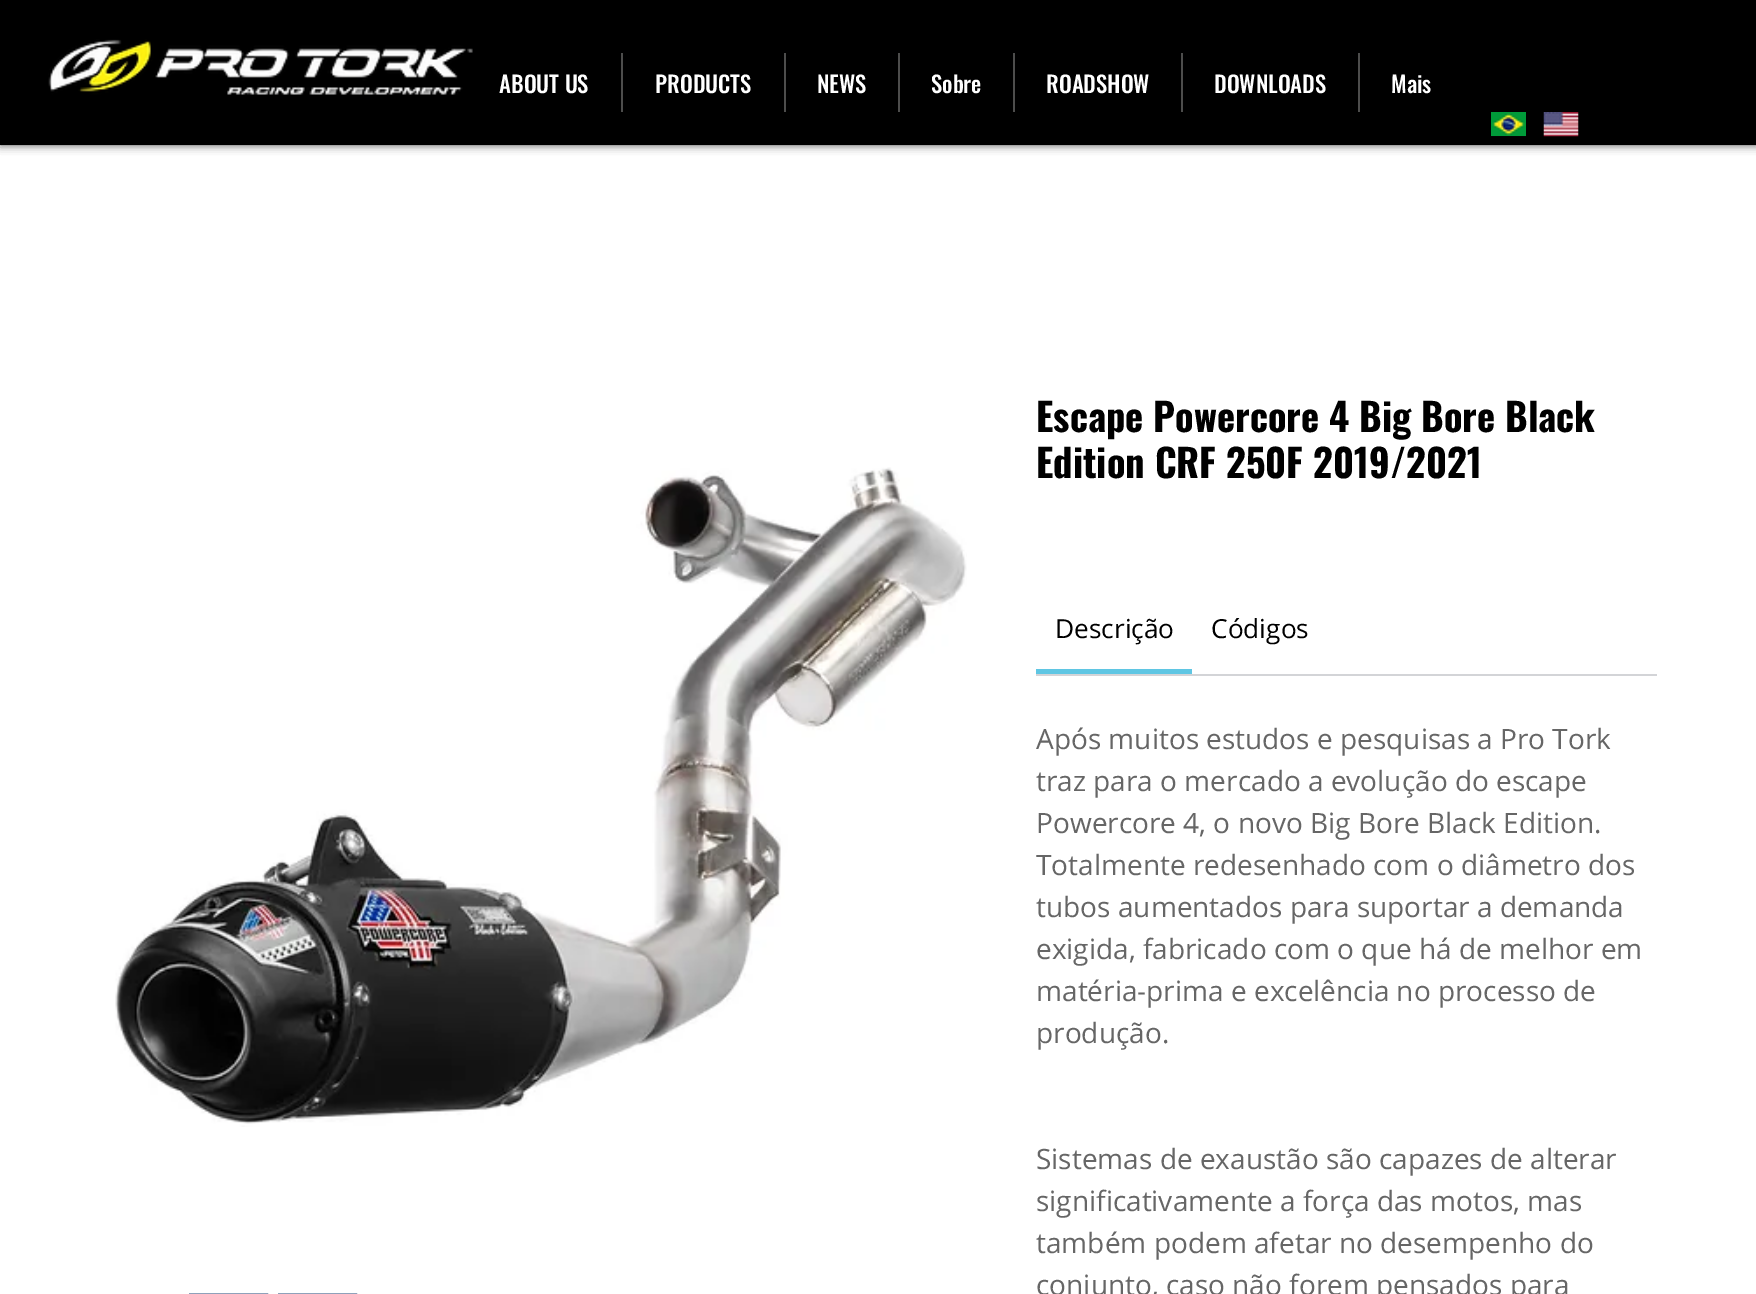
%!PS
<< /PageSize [1756 1294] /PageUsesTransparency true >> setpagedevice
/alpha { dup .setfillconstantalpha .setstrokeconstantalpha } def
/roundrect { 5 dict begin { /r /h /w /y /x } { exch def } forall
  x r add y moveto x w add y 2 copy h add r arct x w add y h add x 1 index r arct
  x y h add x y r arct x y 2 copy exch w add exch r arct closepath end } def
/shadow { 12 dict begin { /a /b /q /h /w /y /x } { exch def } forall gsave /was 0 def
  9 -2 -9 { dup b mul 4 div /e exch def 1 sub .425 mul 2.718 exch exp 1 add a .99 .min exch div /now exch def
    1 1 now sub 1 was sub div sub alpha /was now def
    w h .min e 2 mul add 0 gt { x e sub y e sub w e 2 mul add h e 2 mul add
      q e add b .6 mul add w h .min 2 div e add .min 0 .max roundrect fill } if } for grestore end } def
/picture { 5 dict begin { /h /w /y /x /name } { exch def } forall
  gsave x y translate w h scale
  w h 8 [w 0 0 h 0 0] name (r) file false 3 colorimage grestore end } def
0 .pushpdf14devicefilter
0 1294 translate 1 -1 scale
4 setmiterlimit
1 setgray
0 0 1756 1294 rectfill
0 setgray
0 0 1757 145 0 4.5 0.7 shadow
0 0 1756 145 rectfill
(img1.rgb) 48 39 425 56 picture
/Oswald-Medium [22.75 0 0 -22.75 0 0] selectfont
1 setgray
499 93 moveto (ABOUT US) show
0.302 0.302 0.298 setrgbcolor
621 53 2 59 rectfill
1 setgray
655 93 moveto (PRODUCTS) show
0.302 0.302 0.298 setrgbcolor
784 53 2 59 rectfill
1 setgray
817 93 moveto (NEWS) show
0.302 0.302 0.298 setrgbcolor
898 53 2 59 rectfill
1 setgray
931 93 moveto (Sobre) show
0.302 0.302 0.298 setrgbcolor
1013 53 2 59 rectfill
1 setgray
1046 93 moveto (ROADSHOW) show
0.302 0.302 0.298 setrgbcolor
1181 53 2 59 rectfill
1 setgray
1214 93 moveto (DOWNLOADS) show
0.302 0.302 0.298 setrgbcolor
1358 53 2 59 rectfill
1 setgray
1391 93 moveto (Mais) show
(img2.rgb) 1491 112 35 25 picture
(img3.rgb) 1543 112 36 25 picture
(img4.rgb) 115 467 852 660 picture
0.561 0.631 0.729 setrgbcolor
2 setlinewidth
190 1294 77 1 rectstroke
279 1294 77 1 rectstroke
/Oswald-Bold [38.5 0 0 -38.5 0 0] selectfont
0 setgray
1036 432 moveto (Escape Powercore 4 Big Bore Black) show
1036 478 moveto (Edition CRF 250F 2019/2021) show
0.827 0.831 0.843 setrgbcolor
1036 674 621 2 rectfill
0.373 0.776 0.89 setrgbcolor
1036 669 156 5 rectfill
/OpenSans-Regular [26.25 0 0 -26.25 0 0] selectfont
0 setgray
1055 638 moveto (Descrição) show
1211 638 moveto (Códigos) show
/OpenSans-Regular [28 0 0 -28 0 0] selectfont
0.4 setgray
1036 749 moveto (Após muitos estudos e pesquisas a Pro Tork) show
1036 791 moveto (traz para o mercado a evolução do escape) show
1036 833 moveto (Powercore 4, o novo Big Bore Black Edition.) show
1036 875 moveto (Totalmente redesenhado com o diâmetro dos) show
1036 917 moveto (tubos aumentados para suportar a demanda) show
1036 959 moveto (exigida, fabricado com o que há de melhor em) show
1036 1001 moveto (matéria-prima e excelência no processo de) show
1036 1043 moveto (produção.) show
1036 1169 moveto (Sistemas de exaustão são capazes de alterar) show
1036 1211 moveto (significativamente a força das motos, mas) show
1036 1253 moveto (também podem afetar no desempenho do) show
1036 1295 moveto (conjunto, caso não forem pensados para) show
.poppdf14devicefilter showpage
